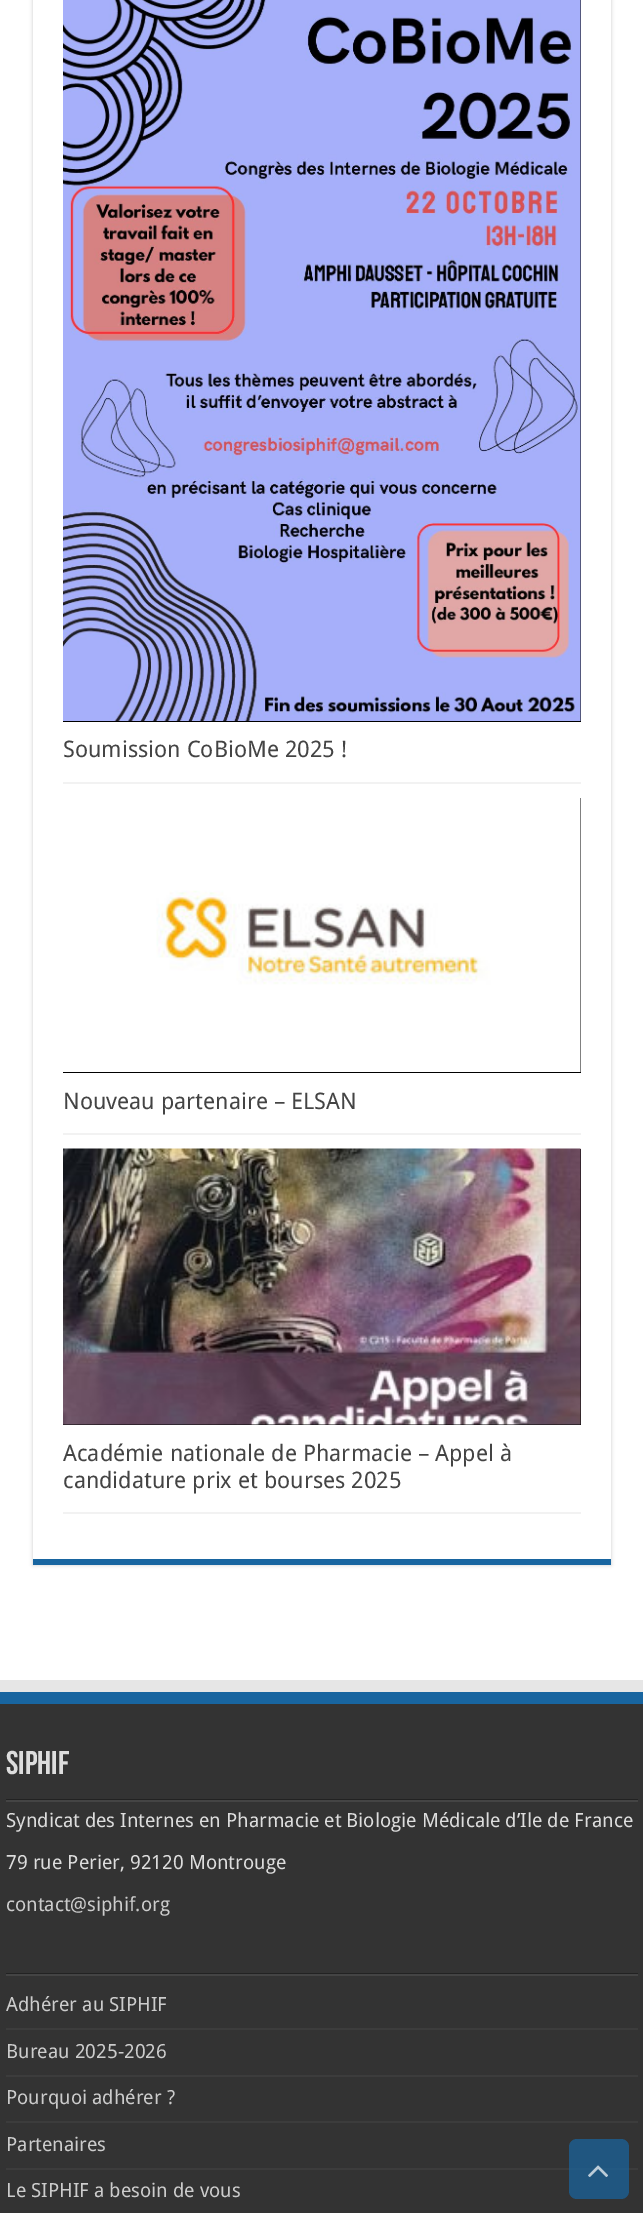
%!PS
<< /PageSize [643 2213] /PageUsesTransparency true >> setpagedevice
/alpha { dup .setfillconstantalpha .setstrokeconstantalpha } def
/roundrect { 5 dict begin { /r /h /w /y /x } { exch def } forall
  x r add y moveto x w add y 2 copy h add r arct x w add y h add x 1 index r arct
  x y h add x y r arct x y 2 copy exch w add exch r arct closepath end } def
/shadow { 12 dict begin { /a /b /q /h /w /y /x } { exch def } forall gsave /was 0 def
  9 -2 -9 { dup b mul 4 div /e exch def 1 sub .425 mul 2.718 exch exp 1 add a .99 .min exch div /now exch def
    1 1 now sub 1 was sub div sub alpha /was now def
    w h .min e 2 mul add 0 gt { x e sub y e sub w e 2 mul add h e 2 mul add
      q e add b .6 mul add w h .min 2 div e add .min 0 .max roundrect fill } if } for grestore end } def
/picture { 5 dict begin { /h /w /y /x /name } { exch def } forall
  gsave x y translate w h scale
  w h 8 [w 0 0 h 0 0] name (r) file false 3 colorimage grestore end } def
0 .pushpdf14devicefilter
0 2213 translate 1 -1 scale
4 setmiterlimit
1 setgray
0 0 643 2213 rectfill
0.792 setgray
33 -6 578 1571 0 2 1 shadow
1 setgray
33 0 578 1559 rectfill
0.094 0.396 0.627 setrgbcolor
33 1559 578 6 rectfill
0 setgray
63 0 518 722 rectfill
(img1.rgb) 63 0 518 721 picture
/DroidSans-Regular [22.8 0 0 -22.8 0 0] selectfont
0.267 setgray
63 757 moveto (Soumission CoBioMe 2025 !) show
0.949 setgray
63 782 518 2 rectfill
0 setgray
63 798 518 275 rectfill
(img2.rgb) 63 798 518 274 picture
0.267 setgray
63 1109 moveto (Nouveau partenaire – ELSAN) show
0.949 setgray
63 1133 518 2 rectfill
0 setgray
63 1149 518 276 rectfill
(img3.rgb) 63 1148 518 277 picture
0.267 setgray
63 1461 moveto (Académie nationale de Pharmacie – Appel à) show
63 1488 moveto (candidature prix et bourses 2025) show
0.949 setgray
63 1512 518 2 rectfill
0.902 setgray
newpath 0 1680 moveto 0 1692 lineto 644 1692 lineto 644 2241 lineto 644 1680 lineto closepath fill
0.2 setgray
0 1704 643 509 rectfill
0.094 0.396 0.627 setrgbcolor
0 1692 643 12 rectfill
0.133 setgray
6 1799 632 1 rectfill
/BebasNeue-Bold [33 0 0 -33 0 0] selectfont
0.867 setgray
6 1774 moveto (SIPHIF) show
0.267 setgray
6 1800 632 2 rectfill
/DroidSans-Regular [19.5 0 0 -19.5 0 0] selectfont
0.867 setgray
6 1827 moveto (Syndicat des Internes en Pharmacie et Biologie Médicale d’Ile de France) show
6 1869 moveto (79 rue Perier, 92120 Montrouge) show
0.8 setgray
6 1911 moveto (contact@siphif.org) show
0.133 setgray
6 1973 632 1 rectfill
0.267 setgray
6 1974 632 2 rectfill
0.235 setgray
6 2028 632 2 rectfill
0.8 setgray
6 2011 moveto (Adhérer au SIPHIF) show
0.235 setgray
6 2075 632 2 rectfill
0.8 setgray
6 2058 moveto (Bureau 2025-2026) show
0.235 setgray
6 2121 632 2 rectfill
0.8 setgray
6 2104 moveto (Pourquoi adhérer ?) show
0.235 setgray
6 2168 632 2 rectfill
0.8 setgray
6 2151 moveto (Partenaires) show
6 2197 moveto (Le SIPHIF a besoin de vous) show
0.7 alpha
0.094 0.396 0.627 setrgbcolor
569 2139 60 60 8 roundrect fill
1 alpha
(img4.rgb) 588 2165 20 12 picture
.poppdf14devicefilter showpage
